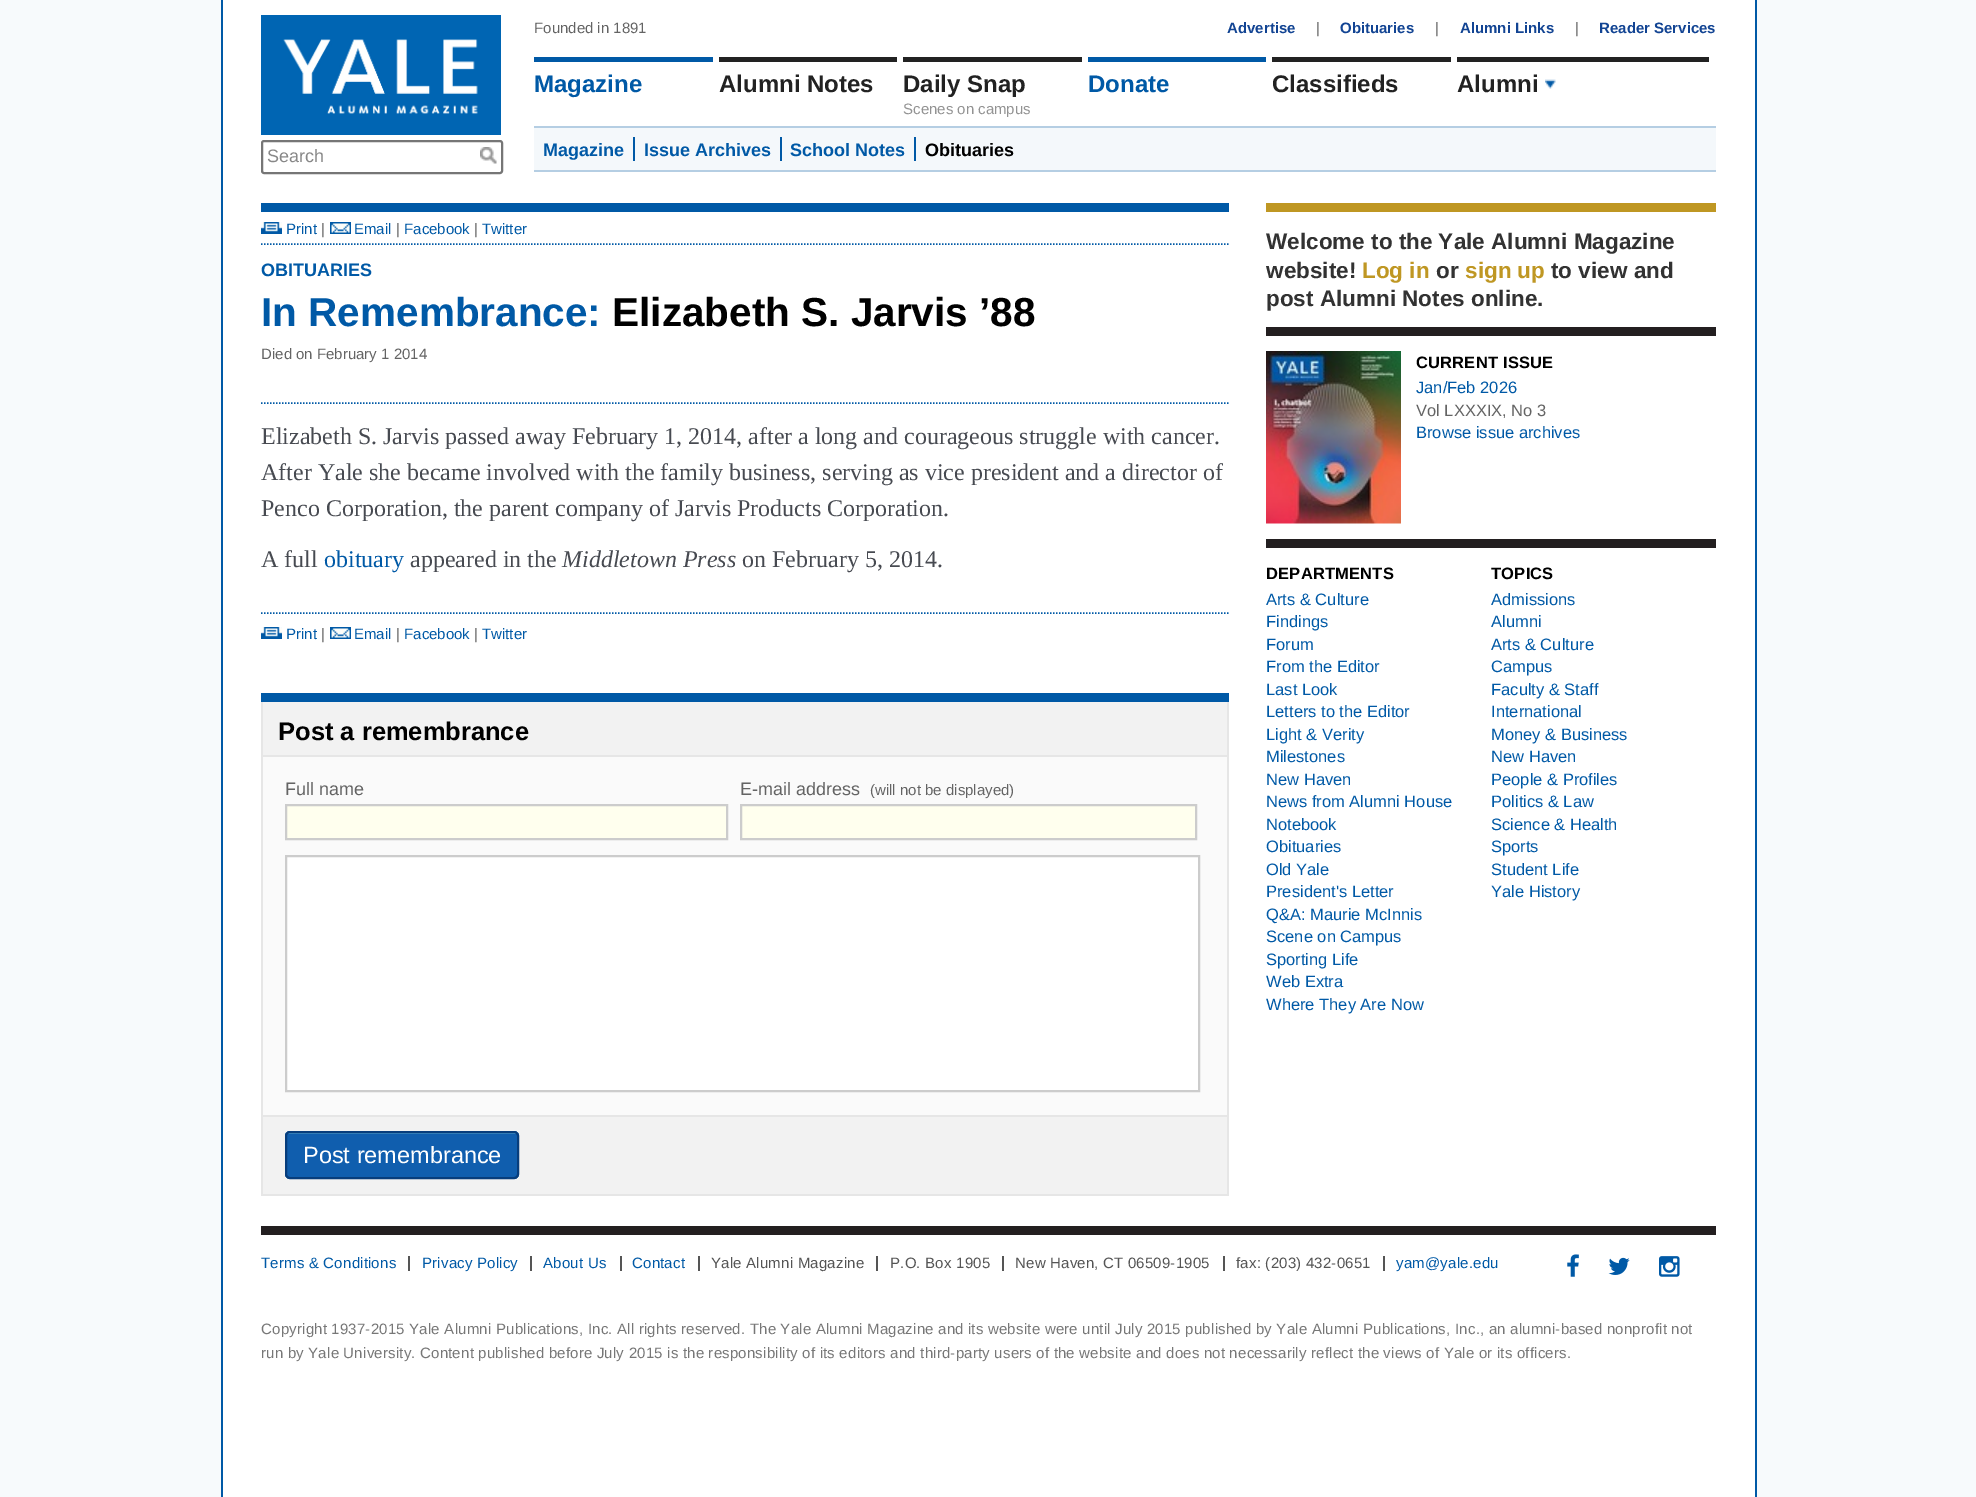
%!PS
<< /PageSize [1976 1497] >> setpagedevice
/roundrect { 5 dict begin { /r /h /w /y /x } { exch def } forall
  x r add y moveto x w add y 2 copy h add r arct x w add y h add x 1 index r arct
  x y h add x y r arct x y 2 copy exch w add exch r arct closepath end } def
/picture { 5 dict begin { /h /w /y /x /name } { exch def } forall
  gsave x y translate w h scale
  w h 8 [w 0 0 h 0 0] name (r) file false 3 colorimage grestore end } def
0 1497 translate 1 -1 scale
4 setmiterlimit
0.969 0.98 0.988 setrgbcolor
0 0 1976 1497 rectfill
1 setgray
223 0 1532 1497 rectfill
0 0.349 0.651 setrgbcolor
1755 0 2 1497 rectfill
221 0 2 1497 rectfill
(img1.rgb) 261 15 240 120 picture
0.463 setgray
2 setlinewidth
262 141 240 32 2 roundrect stroke
/LiberationSans-Regular [18 0 0 -18 0 0] selectfont
0.533 setgray
267 162 moveto (Search) show
(img2.rgb) 480 147 17 17 picture
/LiberationSans-Regular [15 0 0 -15 0 0] selectfont
0.392 setgray
534 33 moveto (Founded in 1891) show
/LiberationSans-Bold [15 0 0 -15 0 0] selectfont
0.071 0.267 0.576 setrgbcolor
1227 33 moveto (Advertise) show
/LiberationSans-Regular [15 0 0 -15 0 0] selectfont
0.392 setgray
1316 33 moveto (|) show
/LiberationSans-Bold [15 0 0 -15 0 0] selectfont
0.071 0.267 0.576 setrgbcolor
1340 33 moveto (Obituaries) show
/LiberationSans-Regular [15 0 0 -15 0 0] selectfont
0.392 setgray
1435 33 moveto (|) show
/LiberationSans-Bold [15 0 0 -15 0 0] selectfont
0.071 0.267 0.576 setrgbcolor
1460 33 moveto (Alumni Links) show
/LiberationSans-Regular [15 0 0 -15 0 0] selectfont
0.392 setgray
1575 33 moveto (|) show
/LiberationSans-Bold [15 0 0 -15 0 0] selectfont
0.071 0.267 0.576 setrgbcolor
1599 33 moveto (Reader Services) show
0 0.349 0.651 setrgbcolor
534 57 179 5 rectfill
/LiberationSans-Bold [24 0 0 -24 0 0] selectfont
534 92 moveto (Magazine) show
0.133 setgray
719 57 178 5 rectfill
719 92 moveto (Alumni Notes) show
903 57 179 5 rectfill
903 92 moveto (Daily Snap) show
/LiberationSans-Regular [15 0 0 -15 0 0] selectfont
0.576 setgray
903 114 moveto (Scenes on campus) show
0 0.349 0.651 setrgbcolor
1088 57 178 5 rectfill
/LiberationSans-Bold [24 0 0 -24 0 0] selectfont
1088 92 moveto (Donate) show
0.133 setgray
1272 57 179 5 rectfill
1272 92 moveto (Classifieds) show
1457 57 252 5 rectfill
1457 92 moveto (Alumni) show
(img3.rgb) 1545 79 11 10 picture
0.957 0.973 0.984 setrgbcolor
534 128 1182 42 rectfill
0.71 0.808 0.89 setrgbcolor
534 126 1182 2 rectfill
534 170 1182 2 rectfill
0 0.349 0.651 setrgbcolor
633 137 2 24 rectfill
/LiberationSans-Bold [18 0 0 -18 0 0] selectfont
543 156 moveto (Magazine) show
780 137 2 24 rectfill
644 156 moveto (Issue Archives) show
914 137 2 24 rectfill
790 156 moveto (School Notes) show
0 setgray
925 156 moveto (Obituaries) show
0 0.349 0.651 setrgbcolor
261 203 968 9 rectfill
1.5 setlinewidth
[1.5 1.5] 0 setdash
newpath 261 244 moveto 1228.5 244 lineto stroke
(img4.rgb) 261 222 21 12 picture
/LiberationSans-Regular [15 0 0 -15 0 0] selectfont
286 234 moveto (Print) show
0.392 setgray
321 234 moveto (|) show
(img5.rgb) 330 222 21 12 picture
0 0.349 0.651 setrgbcolor
354 234 moveto (Email) show
0.392 setgray
396 234 moveto (|) show
0 0.349 0.651 setrgbcolor
404 234 moveto (Facebook) show
0.392 setgray
474 234 moveto (|) show
0 0.349 0.651 setrgbcolor
482 234 moveto (Twitter) show
/LiberationSans-Bold [18 0 0 -18 0 0] selectfont
261 276 moveto (OBITUARIES) show
newpath 261 403 moveto 1228.5 403 lineto stroke
/LiberationSans-Bold [40.5 0 0 -40.5 0 0] selectfont
261 326 moveto (In Remembrance:) show
0 setgray
612 326 moveto (Elizabeth S. Jarvis ’88) show
/LiberationSans-Regular [15 0 0 -15 0 0] selectfont
0.392 setgray
261 359 moveto (Died on February 1 2014) show
/LiberationSerif-Regular [24 0 0 -24 0 0] selectfont
0.278 0.29 0.318 setrgbcolor
261 444 moveto (Elizabeth S. Jarvis passed away February 1, 2014, after a long and courageous struggle with cancer.) show
261 480 moveto (After Yale she became involved with the family business, serving as vice president and a director of) show
261 516 moveto (Penco Corporation, the parent company of Jarvis Products Corporation.) show
261 567 moveto (A full) show
0 0.349 0.651 setrgbcolor
324 567 moveto (obituary) show
0.278 0.29 0.318 setrgbcolor
410 567 moveto (appeared in the) show
/LiberationSerif-Italic [24 0 0 -24 0 0] selectfont
562 567 moveto (Middletown Press) show
/LiberationSerif-Regular [24 0 0 -24 0 0] selectfont
742 567 moveto (on February 5, 2014.) show
0 0.349 0.651 setrgbcolor
newpath 261 613 moveto 1228.5 613 lineto stroke
(img4.rgb) 261 627 21 12 picture
/LiberationSans-Regular [15 0 0 -15 0 0] selectfont
286 639 moveto (Print) show
0.392 setgray
321 639 moveto (|) show
(img5.rgb) 330 627 21 12 picture
0 0.349 0.651 setrgbcolor
354 639 moveto (Email) show
0.392 setgray
396 639 moveto (|) show
0 0.349 0.651 setrgbcolor
404 639 moveto (Facebook) show
0.392 setgray
474 639 moveto (|) show
0 0.349 0.651 setrgbcolor
482 639 moveto (Twitter) show
261 693 968 9 rectfill
0.98 setgray
263 757 964 358 rectfill
0.902 setgray
1227 702 2 494 rectfill
261 1194 968 2 rectfill
261 702 2 494 rectfill
0.949 setgray
263 702 964 53 rectfill
0.902 setgray
263 755 964 2 rectfill
/LiberationSans-Bold [25.5 0 0 -25.5 0 0] selectfont
0 setgray
278 740 moveto (Post a remembrance) show
/LiberationSans-Regular [18 0 0 -18 0 0] selectfont
0.392 setgray
285 795 moveto (Full name) show
1 1 0.933 setrgbcolor
newpath 286 805 moveto 727 805 lineto 727 839 lineto 286 839 lineto closepath gsave fill grestore
0.8 setgray
2 setlinewidth
[] 0 setdash
stroke
0.392 setgray
740 795 moveto (E-mail address) show
/LiberationSans-Regular [15 0 0 -15 0 0] selectfont
870 795 moveto (\(will not be displayed\)) show
1 1 0.933 setrgbcolor
newpath 741 805 moveto 1196 805 lineto 1196 839 lineto 741 839 lineto closepath gsave fill grestore
0.8 setgray
stroke
1 setgray
newpath 286 856 moveto 1199 856 lineto 1199 1091 lineto 286 1091 lineto closepath gsave fill grestore
0.8 setgray
stroke
0.949 setgray
263 1117 964 77 rectfill
0.902 setgray
263 1115 964 2 rectfill
0.063 0.369 0.682 setrgbcolor
285 1131 234 48 5 roundrect fill
(img6.rgb) 285 1132 234 2 picture
0.027 0.239 0.486 setrgbcolor
286 1132 232 46 4 roundrect stroke
/LiberationSans-Regular [23.5 0 0 -23.5 0 0] selectfont
1 setgray
303 1163 moveto (Post remembrance) show
0.749 0.592 0.137 setrgbcolor
1266 203 450 9 rectfill
/LiberationSans-Bold [22.5 0 0 -22.5 0 0] selectfont
0.196 setgray
1266 249 moveto (Welcome to the Yale Alumni Magazine) show
1266 278 moveto (website!) show
0.749 0.592 0.137 setrgbcolor
1362 278 moveto (Log in) show
0.196 setgray
1436 278 moveto (or) show
0.749 0.592 0.137 setrgbcolor
1465 278 moveto (sign up) show
0.196 setgray
1551 278 moveto (to view and) show
1266 306 moveto (post Alumni Notes online.) show
0.137 0.122 0.125 setrgbcolor
1266 327 450 9 rectfill
(img7.rgb) 1266 351 135 173 picture
/LiberationSans-Bold [16.5 0 0 -16.5 0 0] selectfont
0 setgray
1416 368 moveto 0.2 0 (CURRENT ISSUE) ashow
/LiberationSans-Regular [16.5 0 0 -16.5 0 0] selectfont
0 0.349 0.651 setrgbcolor
1416 393 moveto (Jan/Feb 2026) show
0.392 setgray
1416 416 moveto (Vol LXXXIX, No 3) show
0 0.349 0.651 setrgbcolor
1416 438 moveto (Browse issue archives) show
0.137 0.122 0.125 setrgbcolor
1266 539 450 9 rectfill
/LiberationSans-Bold [16.5 0 0 -16.5 0 0] selectfont
0 setgray
1266 579 moveto 0.2 0 (DEPARTMENTS) ashow
/LiberationSans-Regular [16.5 0 0 -16.5 0 0] selectfont
0 0.349 0.651 setrgbcolor
1266 605 moveto (Arts & Culture) show
1266 627 moveto (Findings) show
1266 650 moveto (Forum) show
1266 672 moveto (From the Editor) show
1266 695 moveto (Last Look) show
1266 717 moveto (Letters to the Editor) show
1266 740 moveto (Light & Verity) show
1266 762 moveto (Milestones) show
1266 785 moveto (New Haven) show
1266 807 moveto (News from Alumni House) show
1266 830 moveto (Notebook) show
1266 852 moveto (Obituaries) show
1266 875 moveto (Old Yale) show
1266 897 moveto (President's Letter) show
1266 920 moveto (Q&A: Maurie McInnis) show
1266 942 moveto (Scene on Campus) show
1266 965 moveto (Sporting Life) show
1266 987 moveto (Web Extra) show
1266 1010 moveto (Where They Are Now) show
/LiberationSans-Bold [16.5 0 0 -16.5 0 0] selectfont
0 setgray
1491 579 moveto 0.2 0 (TOPICS) ashow
/LiberationSans-Regular [16.5 0 0 -16.5 0 0] selectfont
0 0.349 0.651 setrgbcolor
1491 605 moveto (Admissions) show
1491 627 moveto (Alumni) show
1491 650 moveto (Arts & Culture) show
1491 672 moveto (Campus) show
1491 695 moveto (Faculty & Staff) show
1491 717 moveto (International) show
1491 740 moveto (Money & Business) show
1491 762 moveto (New Haven) show
1491 785 moveto (People & Profiles) show
1491 807 moveto (Politics & Law) show
1491 830 moveto (Science & Health) show
1491 852 moveto (Sports) show
1491 875 moveto (Student Life) show
1491 897 moveto (Yale History) show
0.137 0.122 0.125 setrgbcolor
261 1226 1455 9 rectfill
0.333 setgray
408 1256 2 15 rectfill
/LiberationSans-Regular [15 0 0 -15 0 0] selectfont
0 0.349 0.651 setrgbcolor
261 1268 moveto 0.2 0 (Terms & Conditions) ashow
0.333 setgray
530 1256 2 15 rectfill
0 0.349 0.651 setrgbcolor
422 1268 moveto 0.2 0 (Privacy Policy) ashow
0.333 setgray
620 1256 2 15 rectfill
0 0.349 0.651 setrgbcolor
543 1268 moveto 0.2 0 (About Us) ashow
0.333 setgray
698 1256 2 15 rectfill
0 0.349 0.651 setrgbcolor
632 1268 moveto 0.2 0 (Contact) ashow
0.333 setgray
876 1256 2 15 rectfill
711 1268 moveto 0.2 0 (Yale Alumni Magazine) ashow
1002 1256 2 15 rectfill
890 1268 moveto 0.2 0 (P.O. Box 1905) ashow
1223 1256 2 15 rectfill
1015 1268 moveto 0.2 0 (New Haven, CT 06509-1905) ashow
1383 1256 2 15 rectfill
1236 1268 moveto 0.2 0 (fax: \(203\) 432-0651) ashow
0 0.349 0.651 setrgbcolor
1396 1268 moveto 0.2 0 (yam@yale.edu) ashow
(img8.rgb) 1567 1254 12 23 picture
(img9.rgb) 1608 1257 22 18 picture
(img10.rgb) 1659 1256 21 21 picture
0.467 setgray
261 1334 moveto 0.2 0 (Copyright 1937-2015 Yale Alumni Publications, Inc. All rights reserved. The Yale Alumni Magazine and its website were until July 2015 published by Yale Alumni Publications, Inc., an alumni-based nonprofit not) ashow
261 1358 moveto 0.2 0 (run by Yale University. Content published before July 2015 is the responsibility of its editors and third-party users of the website and does not necessarily reflect the views of Yale or its officers.) ashow
showpage
